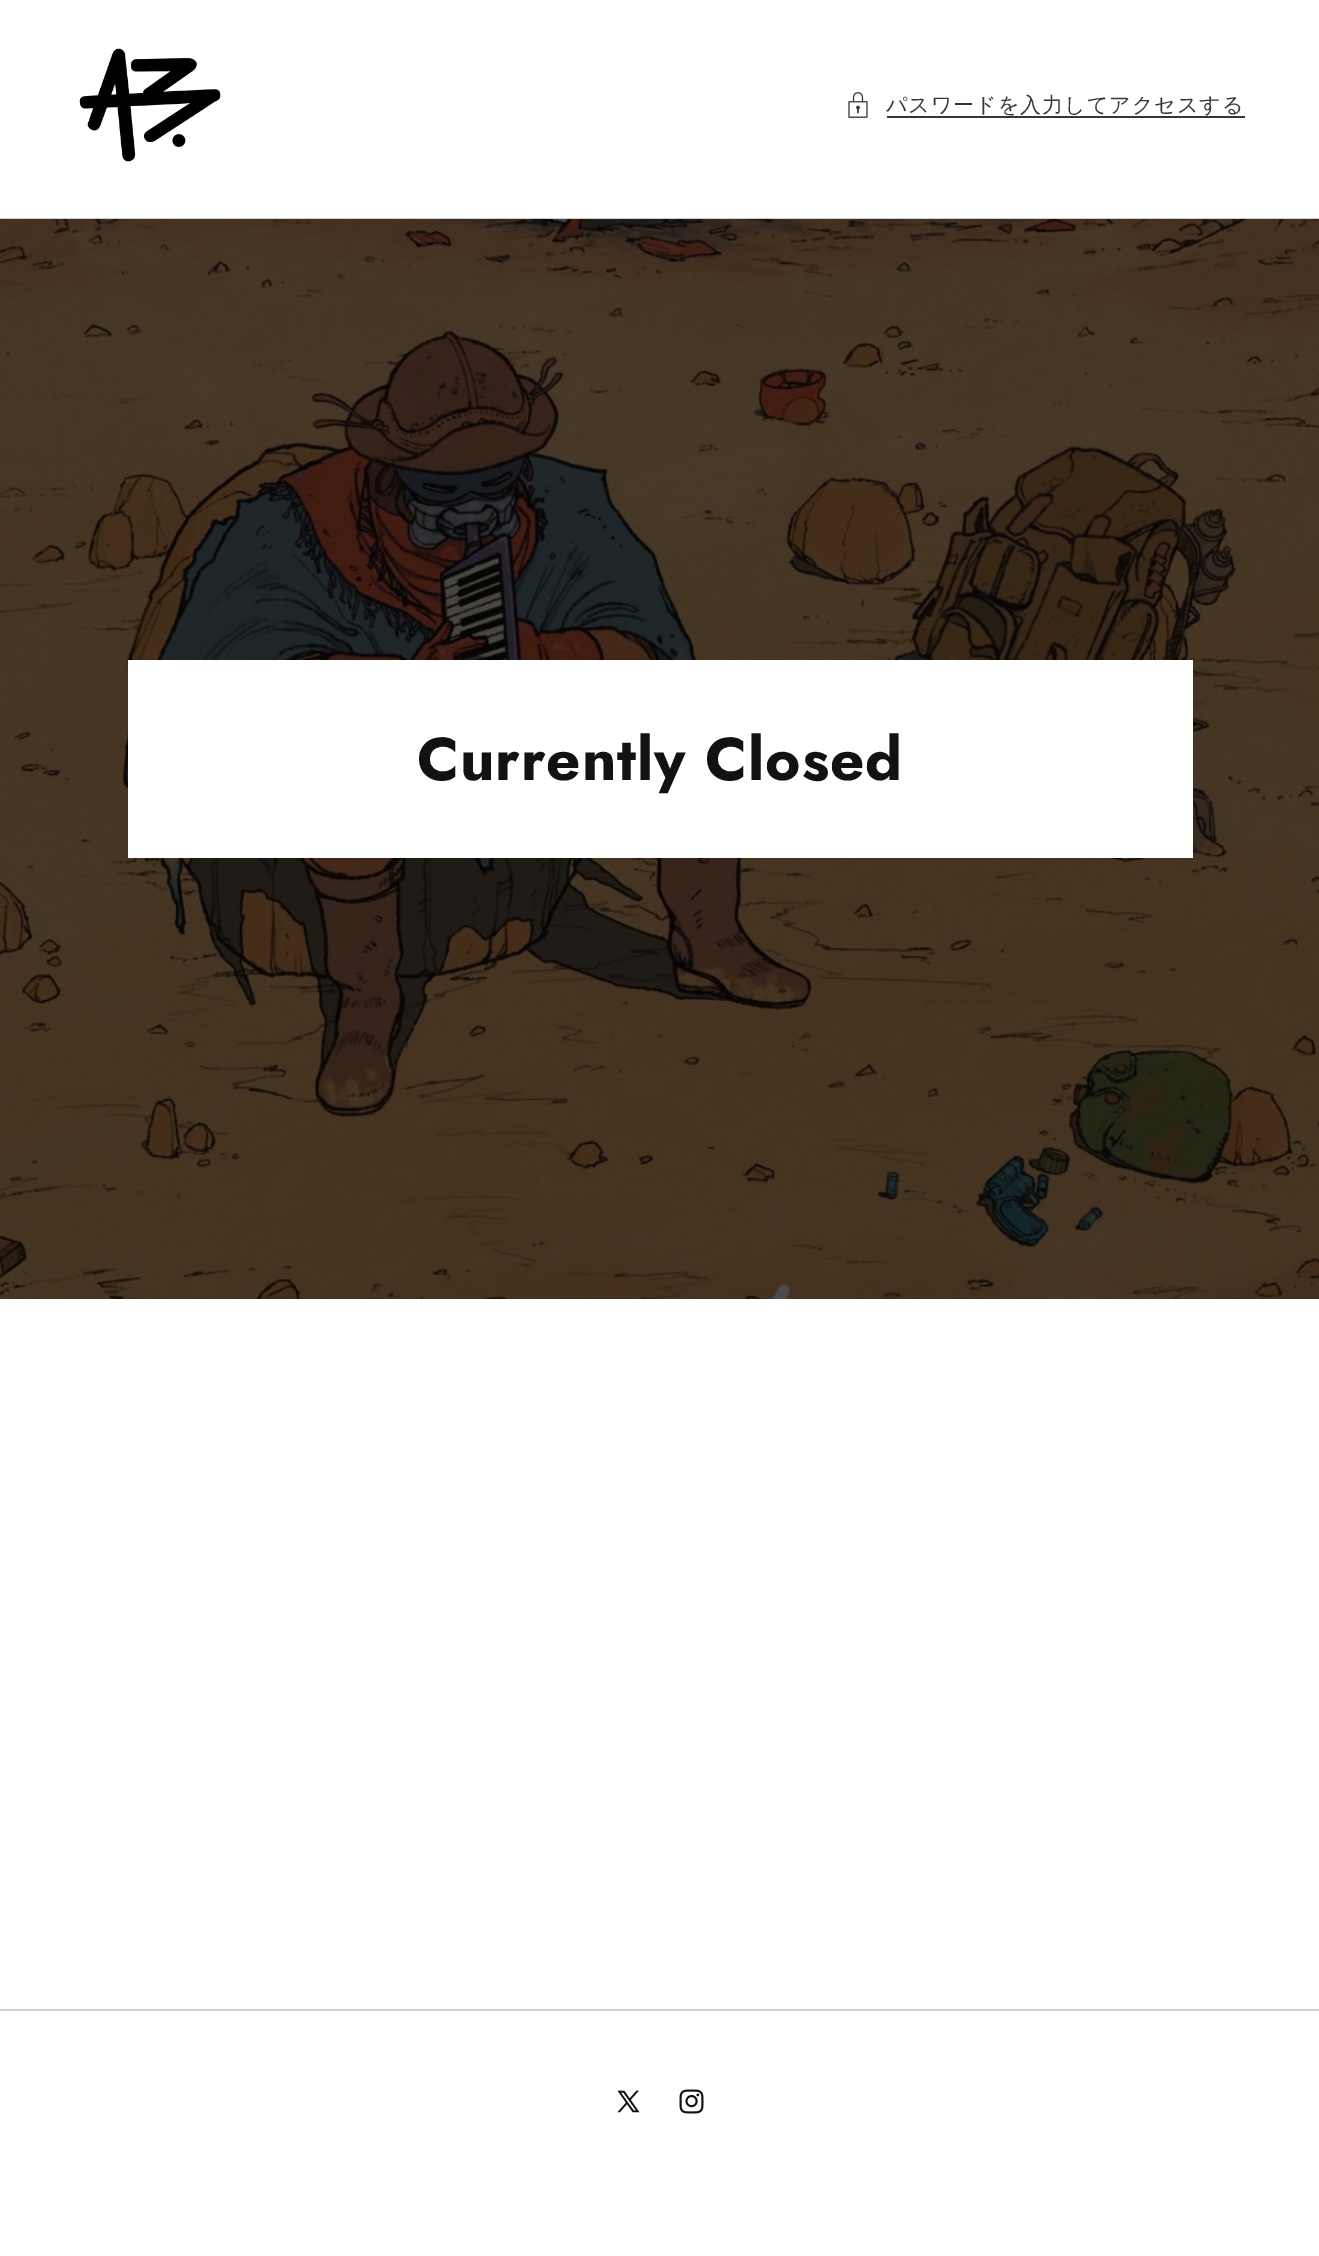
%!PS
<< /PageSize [1319 2256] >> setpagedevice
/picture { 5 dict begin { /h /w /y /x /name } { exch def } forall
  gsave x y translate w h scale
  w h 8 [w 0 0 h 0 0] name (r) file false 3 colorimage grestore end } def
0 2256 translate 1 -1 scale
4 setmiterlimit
1 setgray
0 0 1319 2256 rectfill
(img1.rgb) 79 48 142 114 picture
(img2.rgb) 848 92 20 26 picture
/WenQuanYiZenHei-Medium [21 0 0 -21 0 0] selectfont
0.212 setgray
886 112 moveto 1 0 (パスワードを入力してアクセスする) ashow
887 116 358 2 rectfill
0.816 setgray
0 218 1319 1 rectfill
(img3.rgb) 0 219 1319 1080 picture
1 setgray
128 660 1065 198 rectfill
/Jost-Bold [60 0 0 -60 0 0] selectfont
0.071 setgray
417 780 moveto 0.9 0 (Currently Closed) ashow
0.816 setgray
0 2009 1319 2 rectfill
(img4.rgb) 617 2090 23 23 picture
(img5.rgb) 679 2089 25 25 picture
showpage
